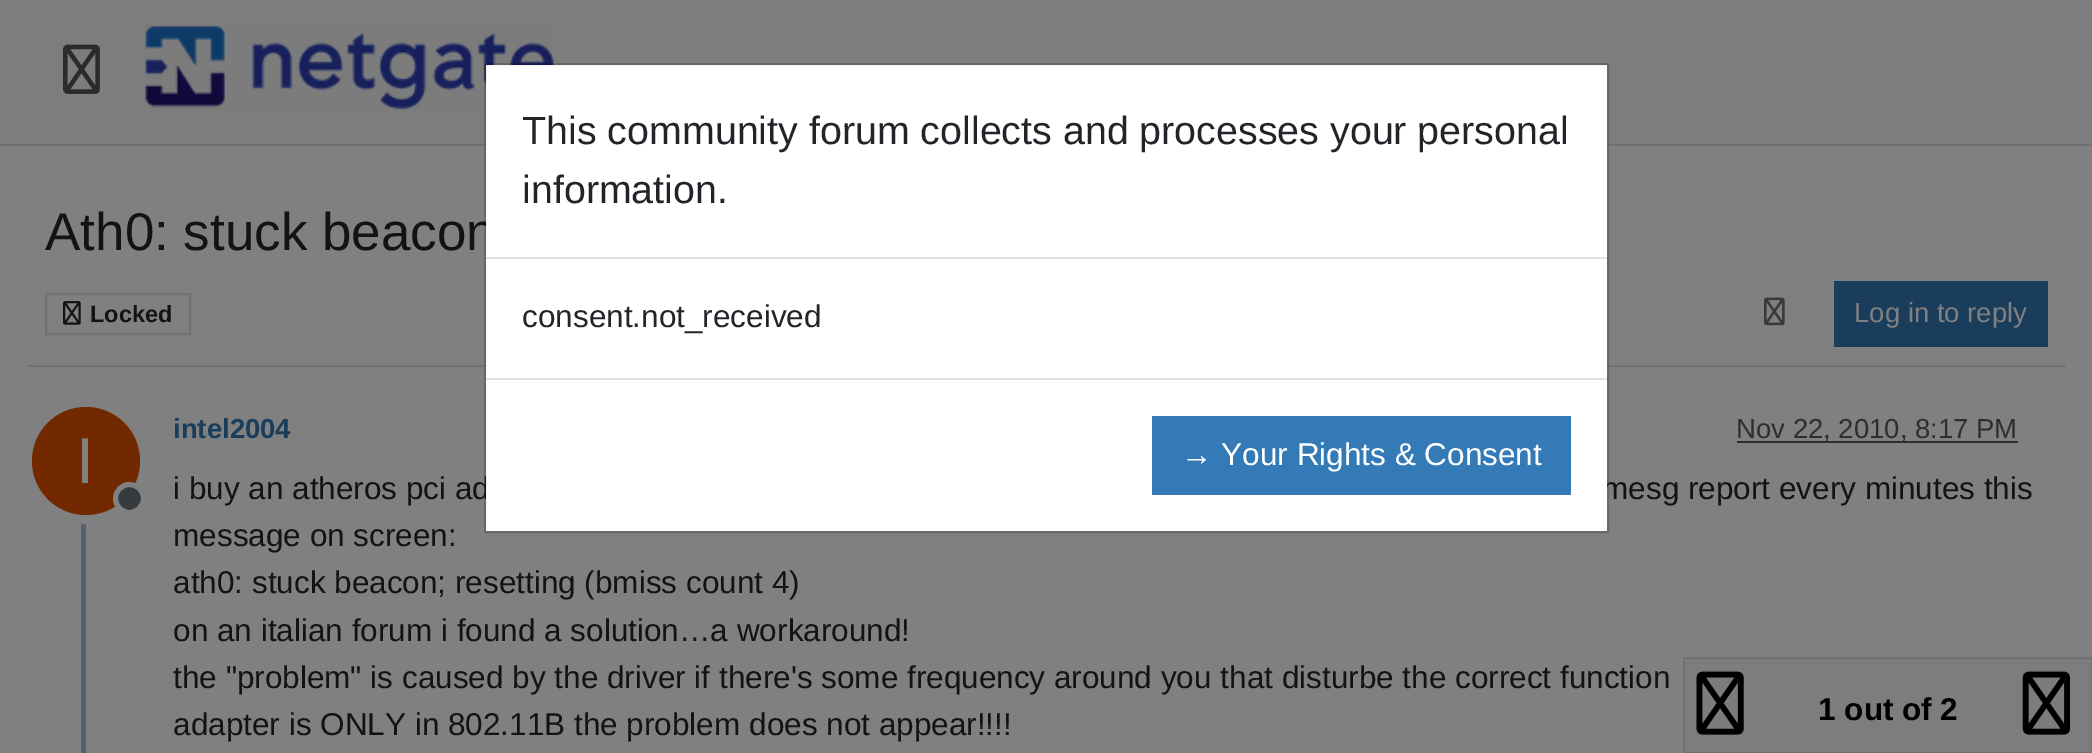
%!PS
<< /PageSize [2092 753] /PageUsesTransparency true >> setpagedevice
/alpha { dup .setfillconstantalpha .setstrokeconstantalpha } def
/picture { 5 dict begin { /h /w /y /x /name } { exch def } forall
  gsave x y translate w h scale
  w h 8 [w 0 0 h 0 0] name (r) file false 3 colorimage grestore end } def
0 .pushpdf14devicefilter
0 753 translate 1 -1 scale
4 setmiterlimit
0.502 setgray
0 0 2092 753 rectfill
0.486 0.49 0.49 setrgbcolor
0 0 2092 144 rectfill
0.435 0.443 0.451 setrgbcolor
0 144 2092 2 rectfill
(img2.rgb) 145 25 409 85 picture
27 365 2039 2 rectfill
/LiberationSans-Regular [53 0 0 -53 0 0] selectfont
0.067 0.075 0.082 setrgbcolor
45 250 moveto (Ath0: stuck beacon) show
/LiberationSans-Regular [31.5 0 0 -31.5 0 0] selectfont
173 499 moveto (i buy an atheros pci ad) show
1602 499 moveto (mesg report every minutes this) show
1 setgray
486 65 1121 466 rectfill
0.18 alpha
0 setgray
2 setlinewidth
485 64 1123 468 rectstroke
1 alpha
0.871 0.886 0.902 setrgbcolor
486 257 1121 2 rectfill
/LiberationSans-Regular [39.4 0 0 -39.4 0 0] selectfont
0.129 0.145 0.161 setrgbcolor
522 144 moveto (This community forum collects and processes your personal) show
522 203 moveto (information.) show
/LiberationSans-Regular [31.5 0 0 -31.5 0 0] selectfont
522 327 moveto (consent.not_received) show
0.871 0.886 0.902 setrgbcolor
486 378 1121 2 rectfill
0.2 0.478 0.718 setrgbcolor
1152 416 419 79 rectfill
1 setgray
1181 465 moveto (→ Your Rights & Consent) show
(img1.rgb) 63 44 37 50 picture
0.435 0.443 0.451 setrgbcolor
46 294 144 40 rectstroke
(img3.rgb) 63 301 18 24 picture
/LiberationSans-Bold [23.5 0 0 -23.5 0 0] selectfont
0.067 0.075 0.082 setrgbcolor
90 322 moveto (Locked) show
(img4.rgb) 1764 297 21 29 picture
0.102 0.239 0.361 setrgbcolor
1834 281 214 66 rectfill
/LiberationSans-Regular [27.5 0 0 -27.5 0 0] selectfont
0.502 setgray
1854 322 moveto (Log in to reply) show
0.314 0.384 0.447 setrgbcolor
81 403 5 350 rectfill
/LiberationSans-Bold [27.5 0 0 -27.5 0 0] selectfont
0.102 0.239 0.361 setrgbcolor
173 438 moveto (intel2004) show
0.176 0.18 0.188 setrgbcolor
1737 441 281 2 rectfill
/LiberationSans-Regular [27.5 0 0 -27.5 0 0] selectfont
0.173 0.18 0.184 setrgbcolor
1736 438 moveto (Nov 22, 2010, 8:17 PM) show
0.502 setgray
9 setlinewidth
newpath 86 461 58.5 0 360 arc closepath stroke
0.451 0.161 0 setrgbcolor
newpath 86 461 54 0 360 arc closepath fill
/LiberationSans-Regular [65 0 0 -65 0 0] selectfont
0.502 setgray
76 483 moveto (I) show
0.212 0.231 0.247 setrgbcolor
newpath 129.5 498.5 14 0 360 arc closepath gsave fill grestore
0.502 setgray
5 setlinewidth
stroke
/LiberationSans-Regular [31.5 0 0 -31.5 0 0] selectfont
0.067 0.075 0.082 setrgbcolor
173 546 moveto (message on screen:) show
173 593 moveto (ath0: stuck beacon; resetting \(bmiss count 4\)) show
173 641 moveto (on an italian forum i found a solution…a workaround!) show
173 688 moveto (the "problem" is caused by the driver if there's some frequency around you that disturbe the correct function) show
173 735 moveto (adapter is ONLY in 802.11B the problem does not appear!!!!) show
0.486 0.49 0.49 setrgbcolor
newpath 1684 658 moveto 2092 658 lineto 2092 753 lineto 1684 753 lineto closepath gsave fill grestore
0.435 0.443 0.451 setrgbcolor
2 setlinewidth
stroke
(img5.rgb) 1696 671 48 64 picture
/LiberationSans-Bold [31.5 0 0 -31.5 0 0] selectfont
0 setgray
1818 720 moveto (1 out of 2) show
(img6.rgb) 2022 671 48 64 picture
.poppdf14devicefilter showpage
